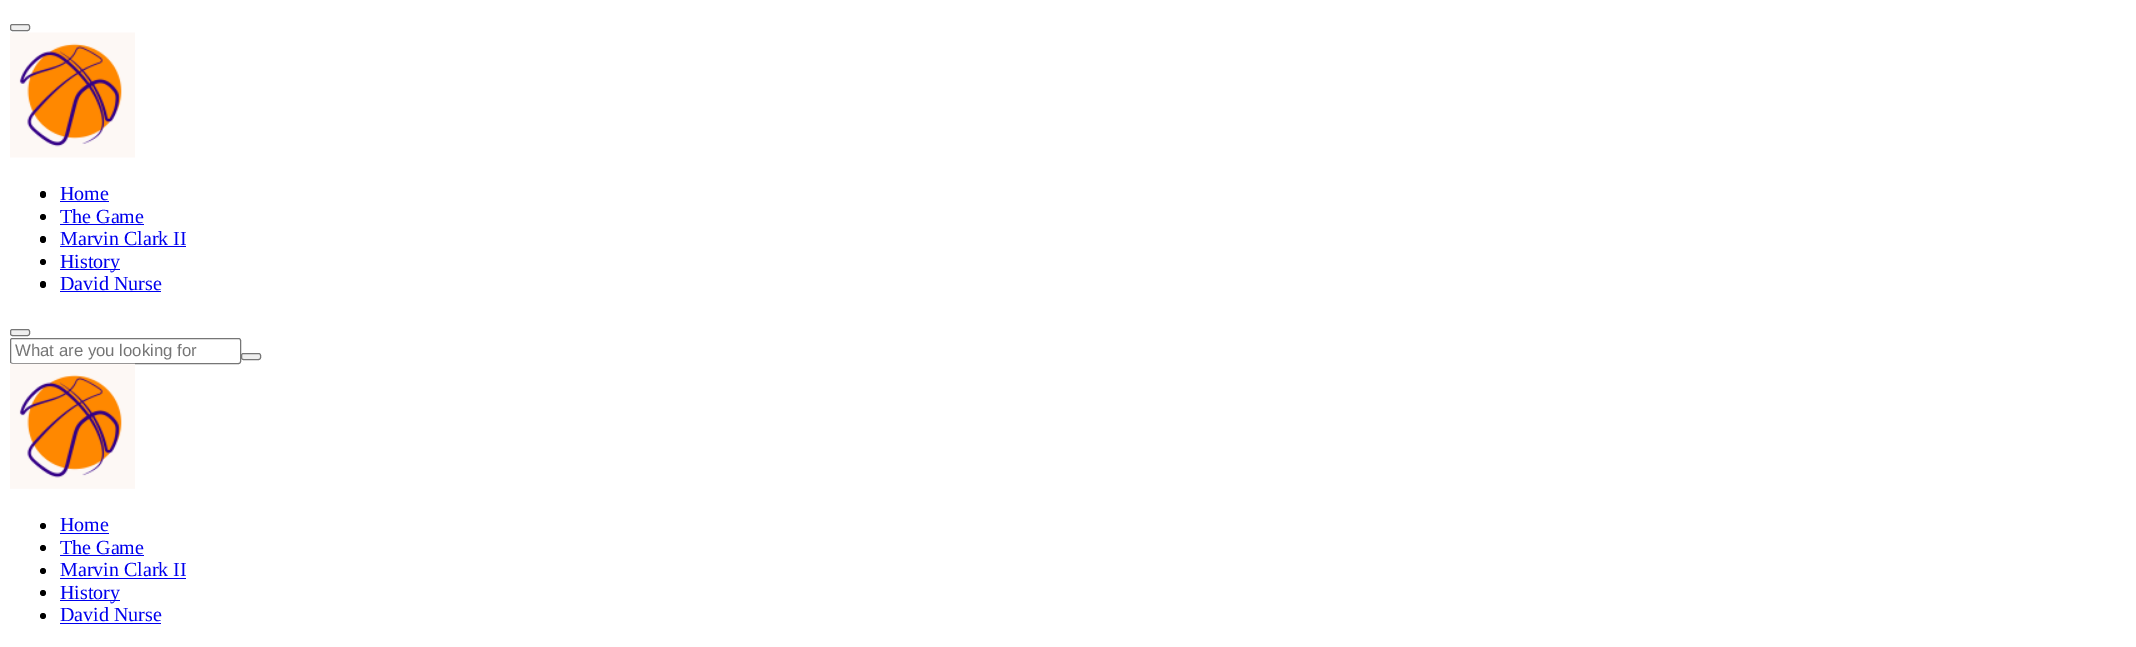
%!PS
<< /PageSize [2136 647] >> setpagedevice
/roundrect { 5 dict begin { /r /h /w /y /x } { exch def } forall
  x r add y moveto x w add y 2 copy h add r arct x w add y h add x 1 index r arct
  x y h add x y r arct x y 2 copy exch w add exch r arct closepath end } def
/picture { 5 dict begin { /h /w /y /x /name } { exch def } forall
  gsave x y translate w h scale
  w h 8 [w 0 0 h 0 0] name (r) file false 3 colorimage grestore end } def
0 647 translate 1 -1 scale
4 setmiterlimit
1 setgray
0 0 2136 647 rectfill
0.937 setgray
10.5 24.5 19 6 2 roundrect gsave fill grestore
0.463 setgray
stroke
(img1.rgb) 10 32 125 126 picture
0 setgray
40 191 6 7 3 roundrect fill
/LiberationSerif-Regular [20 0 0 -20 0 0] selectfont
0 0 0.933 setrgbcolor
60 200 moveto (Home) show
60 201 49 1 rectfill
0 setgray
newpath 43 217 3 0 360 arc closepath fill
0 0 0.933 setrgbcolor
60 223 moveto (The Game) show
60 224 84 1 rectfill
0 setgray
40 236 6 7 3 roundrect fill
0 0 0.933 setrgbcolor
60 245 moveto (Marvin Clark II) show
60 246 126 1 rectfill
0 setgray
newpath 43 262 3 0 360 arc closepath fill
0 0 0.933 setrgbcolor
60 269 60 1 rectfill
60 268 moveto (History) show
0 setgray
40 281 6 7 3 roundrect fill
0 0 0.933 setrgbcolor
60 290 moveto (David Nurse) show
60 291 101 1 rectfill
0.937 setgray
10.5 329.5 19 6 2 roundrect gsave fill grestore
0.463 setgray
stroke
10.5 338.5 230 25 2 roundrect stroke
/LiberationSans-Regular [16.75 0 0 -16.75 0 0] selectfont
0.459 setgray
15 356 moveto (What are you looking for) show
0.937 setgray
241.5 353.5 19 6 2 roundrect gsave fill grestore
0.463 setgray
stroke
(img2.rgb) 10 363 125 126 picture
0 setgray
newpath 43 526 3 0 360 arc closepath fill
/LiberationSerif-Regular [20 0 0 -20 0 0] selectfont
0 0 0.933 setrgbcolor
60 531 moveto (Home) show
60 533 49 1 rectfill
0 setgray
newpath 43 548 3 0 360 arc closepath fill
0 0 0.933 setrgbcolor
60 554 moveto (The Game) show
60 555 84 1 rectfill
0 setgray
newpath 43 571 3 0 360 arc closepath fill
0 0 0.933 setrgbcolor
60 576 moveto (Marvin Clark II) show
60 578 126 1 rectfill
0 setgray
newpath 43 593 3 0 360 arc closepath fill
0 0 0.933 setrgbcolor
60 600 60 1 rectfill
60 599 moveto (History) show
0 setgray
newpath 43 616 3 0 360 arc closepath fill
0 0 0.933 setrgbcolor
60 621 moveto (David Nurse) show
60 623 101 1 rectfill
showpage
